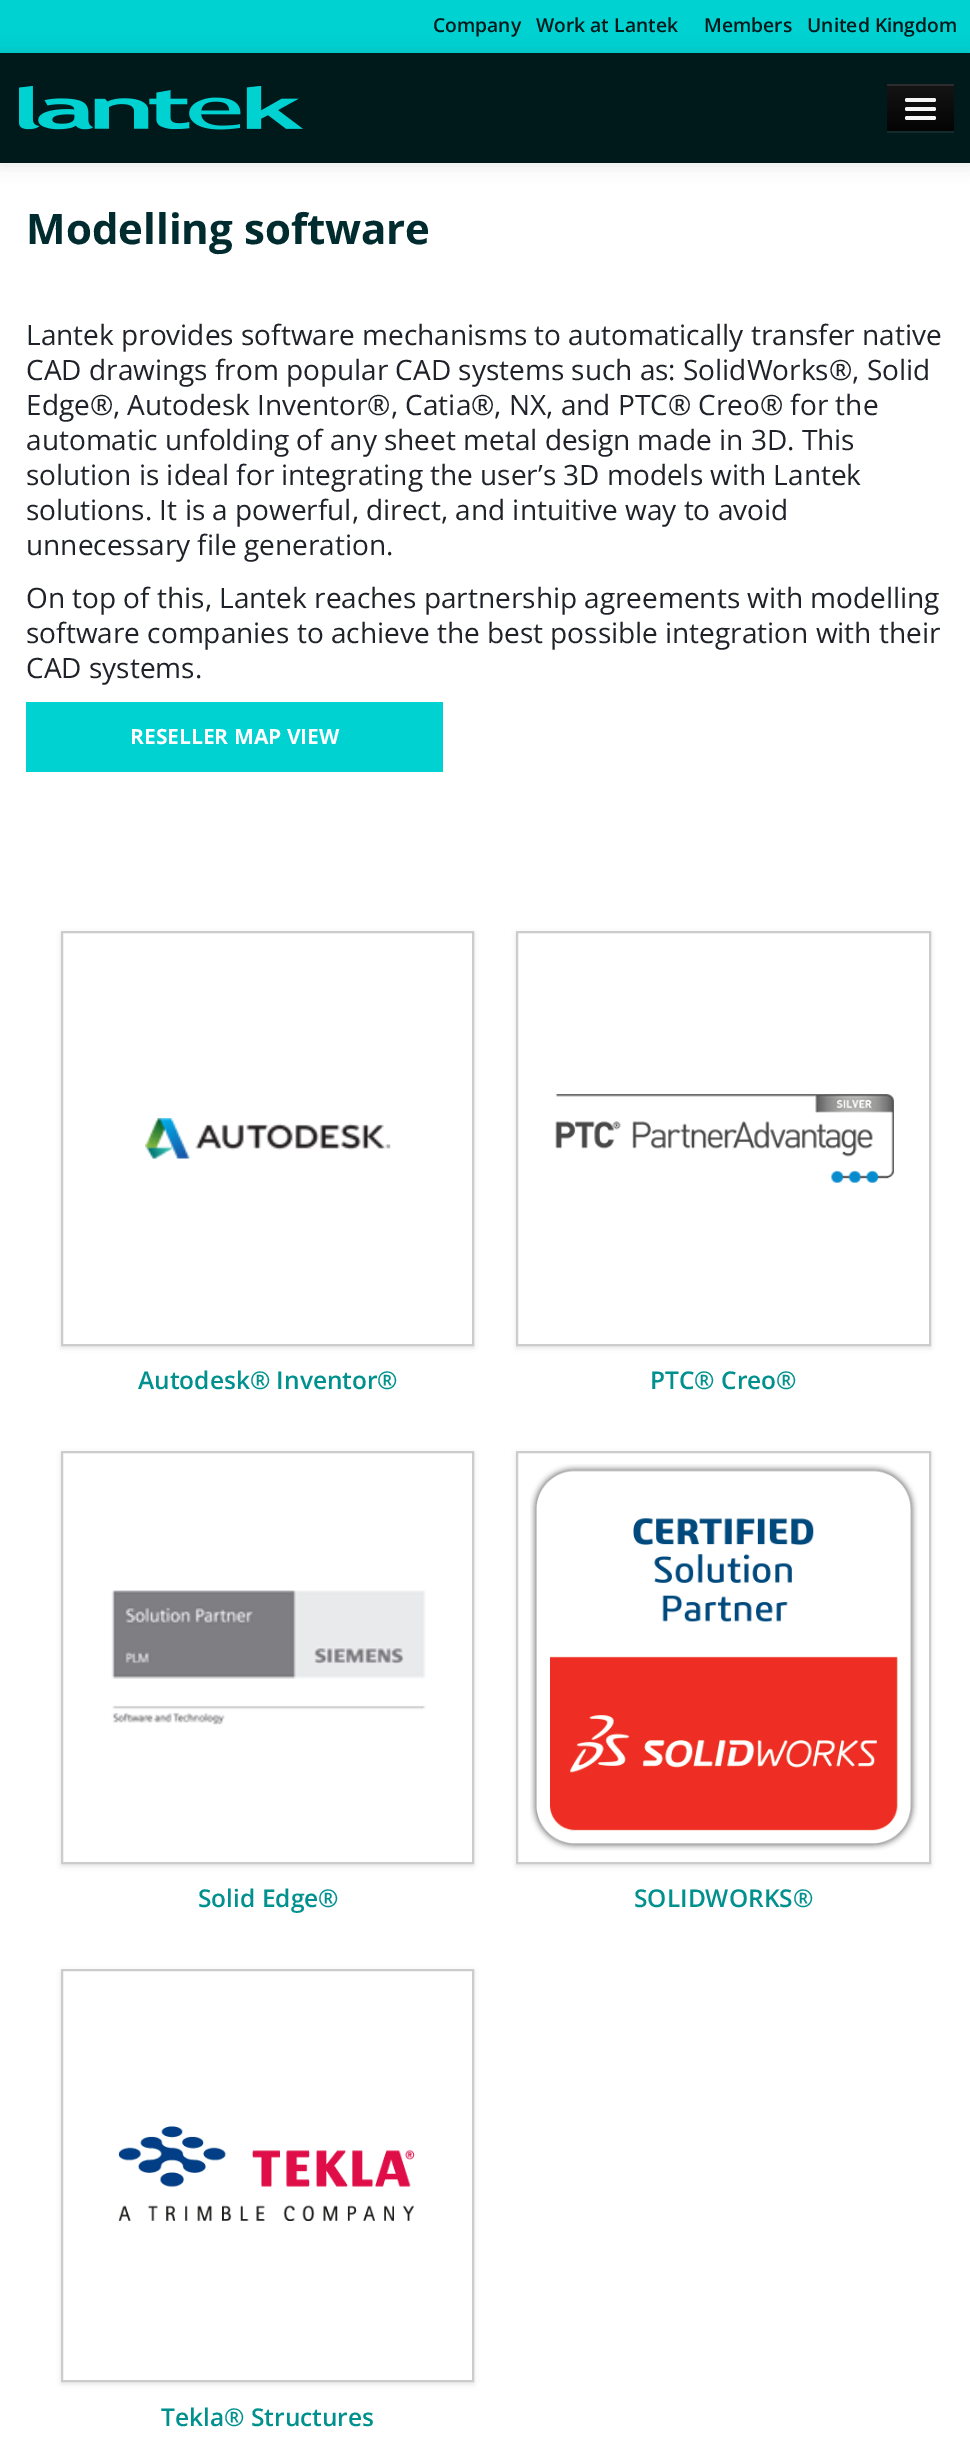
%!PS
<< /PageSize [970 2463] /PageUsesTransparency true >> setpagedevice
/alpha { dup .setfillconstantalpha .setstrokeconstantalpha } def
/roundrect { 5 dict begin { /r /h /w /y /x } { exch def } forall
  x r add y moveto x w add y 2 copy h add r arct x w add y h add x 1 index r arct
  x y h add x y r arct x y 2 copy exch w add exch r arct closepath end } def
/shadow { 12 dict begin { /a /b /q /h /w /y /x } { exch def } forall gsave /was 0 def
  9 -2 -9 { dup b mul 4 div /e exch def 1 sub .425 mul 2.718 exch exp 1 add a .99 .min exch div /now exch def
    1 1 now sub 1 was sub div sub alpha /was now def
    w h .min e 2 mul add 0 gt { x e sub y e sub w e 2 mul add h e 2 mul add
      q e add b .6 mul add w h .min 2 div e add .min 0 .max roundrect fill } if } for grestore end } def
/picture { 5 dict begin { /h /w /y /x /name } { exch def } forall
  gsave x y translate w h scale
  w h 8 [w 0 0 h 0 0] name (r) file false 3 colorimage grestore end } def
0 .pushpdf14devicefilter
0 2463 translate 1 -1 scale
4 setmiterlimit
1 setgray
0 0 970 2463 rectfill
0 0.82 0.82 setrgbcolor
0 0 970 53 rectfill
0 setgray
0 54 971 111 0 9 0.1 shadow
/OpenSans-SemiBold [19.25 0 0 -19.25 0 0] selectfont
0 0.102 0.11 setrgbcolor
433 32 moveto (Company) show
536 32 moveto (Work at Lantek) show
704 32 moveto (Members) show
807 32 moveto (United Kingdom) show
0 53 970 110 rectfill
(img1.rgb) 19 86 284 44 picture
0.075 0.169 0.176 setrgbcolor
newpath 887 86 moveto 887 133 lineto 954 133 lineto 954 86 lineto 954 131 lineto 887 131 lineto closepath fill
gsave newpath 887 86 moveto 954 86 lineto 954 131 lineto 887 131 lineto closepath clip newpath
<< /ShadingType 2 /ColorSpace /DeviceRGB /Coords [921 84 921 131] /Extend [true true] /Function << /FunctionType 2 /Domain [0 1] /C0 [0.082 0.082 0.082] /C1 [0.016 0.016 0.016] /N 1 >> >> shfill grestore
0.173 setgray
887 84 67 2 rectfill
0.043 setgray
newpath 905.5 101 moveto 903 105 911 104 911.5 104 curveto 929.5 104 lineto 930 104 938 105 935.5 101 curveto 934.5 101.5 lineto 906.5 101.5 lineto closepath fill
0.961 setgray
905 98 31 4 2 roundrect fill
0.031 setgray
newpath 905.5 110 moveto 905 111.5 lineto 905.5 114 910.5 113 911.5 113 curveto 929.5 113 lineto 930.5 113 935.5 114 936 111.5 curveto 935.5 110 lineto 934.5 110.5 906.5 110.5 905.5 110 curveto closepath fill
0.961 setgray
905 107 31 4 2 roundrect fill
905 116 31 4 2 roundrect fill
/OpenSans-Bold [42 0 0 -42 0 0] selectfont
0 0.173 0.188 setrgbcolor
26 244 moveto (Modelling software) show
/OpenSans-Regular [28 0 0 -28 0 0] selectfont
0.122 0.133 0.157 setrgbcolor
26 345 moveto (Lantek provides software mechanisms to automatically transfer native) show
26 380 moveto (CAD drawings from popular CAD systems such as: SolidWorks®, Solid) show
26 415 moveto (Edge®, Autodesk Inventor®, Catia®, NX, and PTC® Creo® for the) show
26 450 moveto (automatic unfolding of any sheet metal design made in 3D. This) show
26 485 moveto (solution is ideal for integrating the user’s 3D models with Lantek) show
26 520 moveto (solutions. It is a powerful, direct, and intuitive way to avoid) show
26 555 moveto (unnecessary file generation.) show
26 608 moveto (On top of this, Lantek reaches partnership agreements with modelling) show
26 643 moveto (software companies to achieve the best possible integration with their) show
26 678 moveto (CAD systems.) show
0 0.82 0.82 setrgbcolor
26 702 417 70 rectfill
/OpenSans-Bold [21 0 0 -21 0 0] selectfont
1 setgray
130 744 moveto (RESELLER MAP VIEW) show
0 setgray
61 933 413 415 0 2.5 0.1 shadow
1 setgray
newpath 62 932 moveto 473 932 lineto 473 1345 lineto 62 1345 lineto closepath gsave fill grestore
0.8 setgray
2 setlinewidth
stroke
(img2.rgb) 145 1118 246 41 picture
/OpenSans-SemiBold [24.5 0 0 -24.5 0 0] selectfont
0 0.569 0.561 setrgbcolor
138 1389 moveto (Autodesk® Inventor®) show
0 setgray
516 933 415 415 0 2.5 0.1 shadow
1 setgray
newpath 517 932 moveto 930 932 lineto 930 1345 lineto 517 1345 lineto closepath gsave fill grestore
0.8 setgray
stroke
(img3.rgb) 555 1094 339 89 picture
0 0.569 0.561 setrgbcolor
650 1389 moveto (PTC® Creo®) show
0 setgray
61 1453 413 413 0 2.5 0.1 shadow
1 setgray
newpath 62 1452 moveto 473 1452 lineto 473 1863 lineto 62 1863 lineto closepath gsave fill grestore
0.8 setgray
stroke
(img4.rgb) 111 1590 315 135 picture
0 0.569 0.561 setrgbcolor
198 1907 moveto (Solid Edge®) show
0 setgray
516 1453 415 413 0 2.5 0.1 shadow
1 setgray
newpath 517 1452 moveto 930 1452 lineto 930 1863 lineto 517 1863 lineto closepath gsave fill grestore
0.8 setgray
stroke
(img5.rgb) 530 1464 388 387 picture
0 0.569 0.561 setrgbcolor
634 1907 moveto (SOLIDWORKS®) show
0 setgray
61 1971 413 413 0 2.5 0.1 shadow
1 setgray
newpath 62 1970 moveto 473 1970 lineto 473 2381 lineto 62 2381 lineto closepath gsave fill grestore
0.8 setgray
stroke
(img6.rgb) 118 2126 297 95 picture
0 0.569 0.561 setrgbcolor
161 2426 moveto (Tekla® Structures) show
.poppdf14devicefilter showpage
